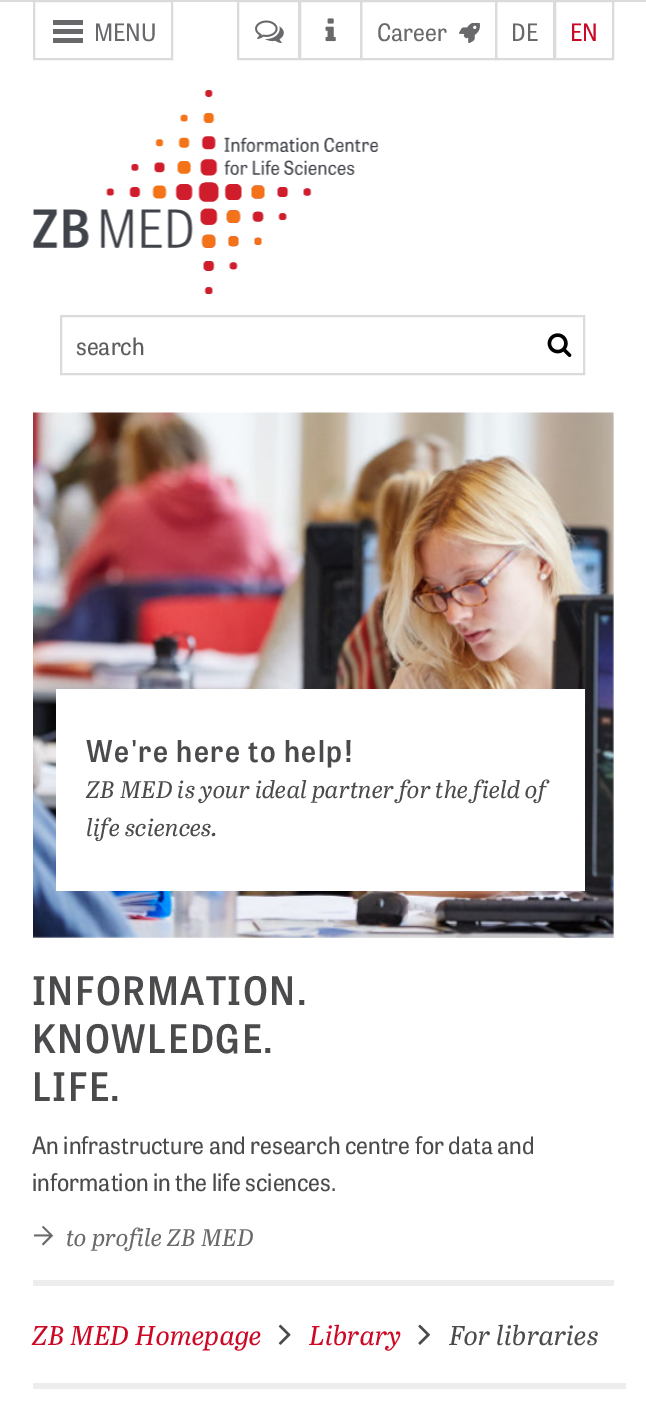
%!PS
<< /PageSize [646 1420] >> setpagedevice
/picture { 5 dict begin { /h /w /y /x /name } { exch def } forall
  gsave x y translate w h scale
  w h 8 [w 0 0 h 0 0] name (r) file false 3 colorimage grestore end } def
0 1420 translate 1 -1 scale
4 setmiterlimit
1 setgray
0 0 646 1420 rectfill
0.859 setgray
0 0 646 2 rectfill
2 setlinewidth
34 1 138 58 rectstroke
0.412 0.412 0.424 setrgbcolor
53 20 30 5 rectfill
53 29 30 5 rectfill
/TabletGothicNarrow-Regular [24 0 0 -24 0 0] selectfont
94 41 moveto (MENU) show
53 38 30 5 rectfill
0.859 setgray
238 1 61 58 rectstroke
(img1.rgb) 255 20 29 24 picture
300 1 61 58 rectstroke
(img2.rgb) 325 18 11 24 picture
361 1 135 58 rectstroke
0.412 0.412 0.424 setrgbcolor
377 41 moveto (Career) show
(img3.rgb) 459 23 21 21 picture
0.859 setgray
496 1 58 58 rectstroke
0.412 0.412 0.424 setrgbcolor
511 41 moveto (DE) show
0.859 setgray
555 1 58 58 rectstroke
0.8 0.031 0.141 setrgbcolor
570 41 moveto (EN) show
(img4.rgb) 33 90 346 204 picture
0.859 setgray
61 316 523 58 rectstroke
0.365 0.365 0.369 setrgbcolor
76 355 moveto (search) show
(img5.rgb) 547 333 25 25 picture
0.929 setgray
33 413 581 525 rectfill
(img6.rgb) 33 412 581 526 picture
1 setgray
56 689 529 202 rectfill
/TabletGothicNarrow-SemiBold [30 0 0 -30 0 0] selectfont
0.294 0.294 0.302 setrgbcolor
86 762 moveto 1.5 0 (We're here to help!) ashow
/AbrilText-Italic [24 0 0 -24 0 0] selectfont
86 798 moveto (ZB MED is your ideal partner for the field of) show
86 836 moveto (life sciences.) show
0.929 setgray
33 1280 581 6 rectfill
/TabletGothicNarrow-SemiBold [39 0 0 -39 0 0] selectfont
0.294 0.294 0.302 setrgbcolor
32 1005 moveto 1.5 0 (INFORMATION.) ashow
32 1053 moveto 1.5 0 (KNOWLEDGE.) ashow
32 1101 moveto 1.5 0 (LIFE.) ashow
/TabletGothicNarrow-Regular [24 0 0 -24 0 0] selectfont
32 1154 moveto (An infrastructure and research centre for data and) show
32 1191 moveto (information in the life sciences.) show
(img7.rgb) 34 1225 20 21 picture
/AbrilText-Italic [24 0 0 -24 0 0] selectfont
0.412 0.412 0.424 setrgbcolor
66 1246 moveto (to profile ZB MED) show
/AbrilText-Italic [27 0 0 -27 0 0] selectfont
0.8 0.031 0.141 setrgbcolor
32 1345 moveto (ZB MED Homepage) show
(img8.rgb) 278 1324 13 21 picture
309 1345 moveto (Library) show
(img9.rgb) 418 1324 12 21 picture
0.294 0.294 0.302 setrgbcolor
449 1345 moveto (For libraries) show
0.929 setgray
33 1383 593 6 rectfill
showpage
